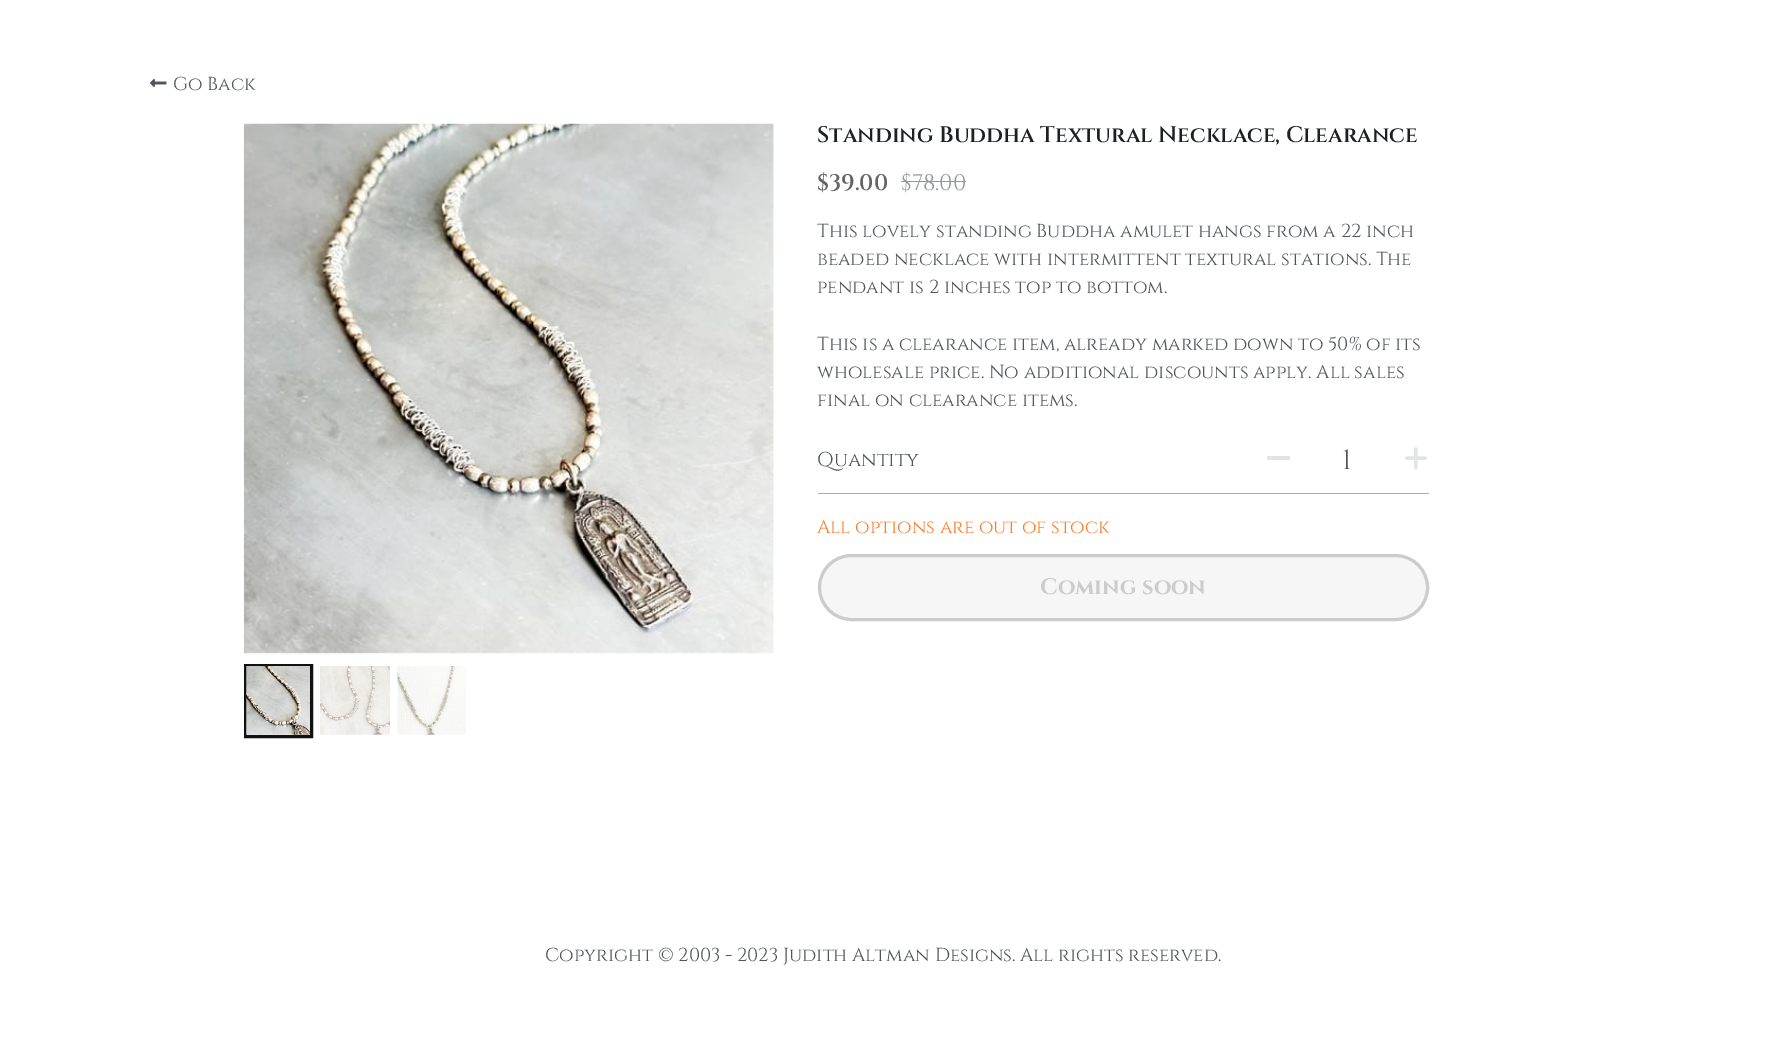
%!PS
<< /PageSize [1768 1043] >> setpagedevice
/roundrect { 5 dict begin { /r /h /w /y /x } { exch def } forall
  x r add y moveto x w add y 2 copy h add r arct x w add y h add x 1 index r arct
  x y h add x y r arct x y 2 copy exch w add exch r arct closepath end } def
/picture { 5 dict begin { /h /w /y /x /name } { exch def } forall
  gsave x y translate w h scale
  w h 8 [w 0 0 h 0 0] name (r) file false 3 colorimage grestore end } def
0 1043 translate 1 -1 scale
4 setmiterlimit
1 setgray
0 0 1768 1043 rectfill
(img1.rgb) 150 79 17 8 picture
/Cinzel-Regular [18.75 0 0 -18.75 0 0] selectfont
0.314 0.333 0.361 setrgbcolor
173 90 moveto (Go Back) show
(img2.rgb) 243 123 531 531 picture
0.067 setgray
3 setlinewidth
245.5 665.5 66 71 rectstroke
(img3.rgb) 246 666 64 69 picture
(img4.rgb) 320 666 70 69 picture
(img5.rgb) 397 666 69 69 picture
/Cinzel-SemiBold [22.5 0 0 -22.5 0 0] selectfont
0.114 0.125 0.137 setrgbcolor
817 142 moveto (Standing Buddha Textural Necklace, Clearance) show
0.392 setgray
817 190 moveto ($39.00) show
/Cinzel-Regular [22.5 0 0 -22.5 0 0] selectfont
0.576 0.596 0.612 setrgbcolor
901 190 moveto ($78.00) show
901 181 65 1 rectfill
/Cinzel-Regular [18.75 0 0 -18.75 0 0] selectfont
0.314 0.333 0.361 setrgbcolor
817 237 moveto (This lovely standing Buddha amulet hangs from a 22 inch) show
817 265 moveto (beaded necklace with intermittent textural stations. The) show
817 293 moveto (pendant is 2 inches top to bottom.) show
817 350 moveto (This is a clearance item, already marked down to 50% of its) show
817 378 moveto (wholesale price. No additional discounts apply. All sales) show
817 406 moveto (final on clearance items.) show
0.663 0.682 0.698 setrgbcolor
818 493 611 1 rectfill
/Cinzel-Regular [20 0 0 -20 0 0] selectfont
0.314 0.333 0.361 setrgbcolor
817 466 moveto (Quantity) show
0.886 0.894 0.906 setrgbcolor
1267 456 23 4 rectfill
/Cinzel-Regular [28 0 0 -28 0 0] selectfont
0.314 0.333 0.361 setrgbcolor
1342 469 moveto (1) show
(img6.rgb) 1405 447 22 22 picture
/Cinzel-Regular [18.75 0 0 -18.75 0 0] selectfont
0.984 0.49 0.169 setrgbcolor
817 533 moveto (All options are out of stock) show
0.965 setgray
819.5 555.5 608 64 32 roundrect gsave fill grestore
0.8 setgray
stroke
/Cinzel-Bold [22.5 0 0 -22.5 0 0] selectfont
1040 594 moveto (Coming soon) show
/Cinzel-Regular [18.75 0 0 -18.75 0 0] selectfont
0.314 0.333 0.361 setrgbcolor
545 961 moveto (Copyright © 2003 - 2023 Judith Altman Designs. All rights reserved.) show
showpage
